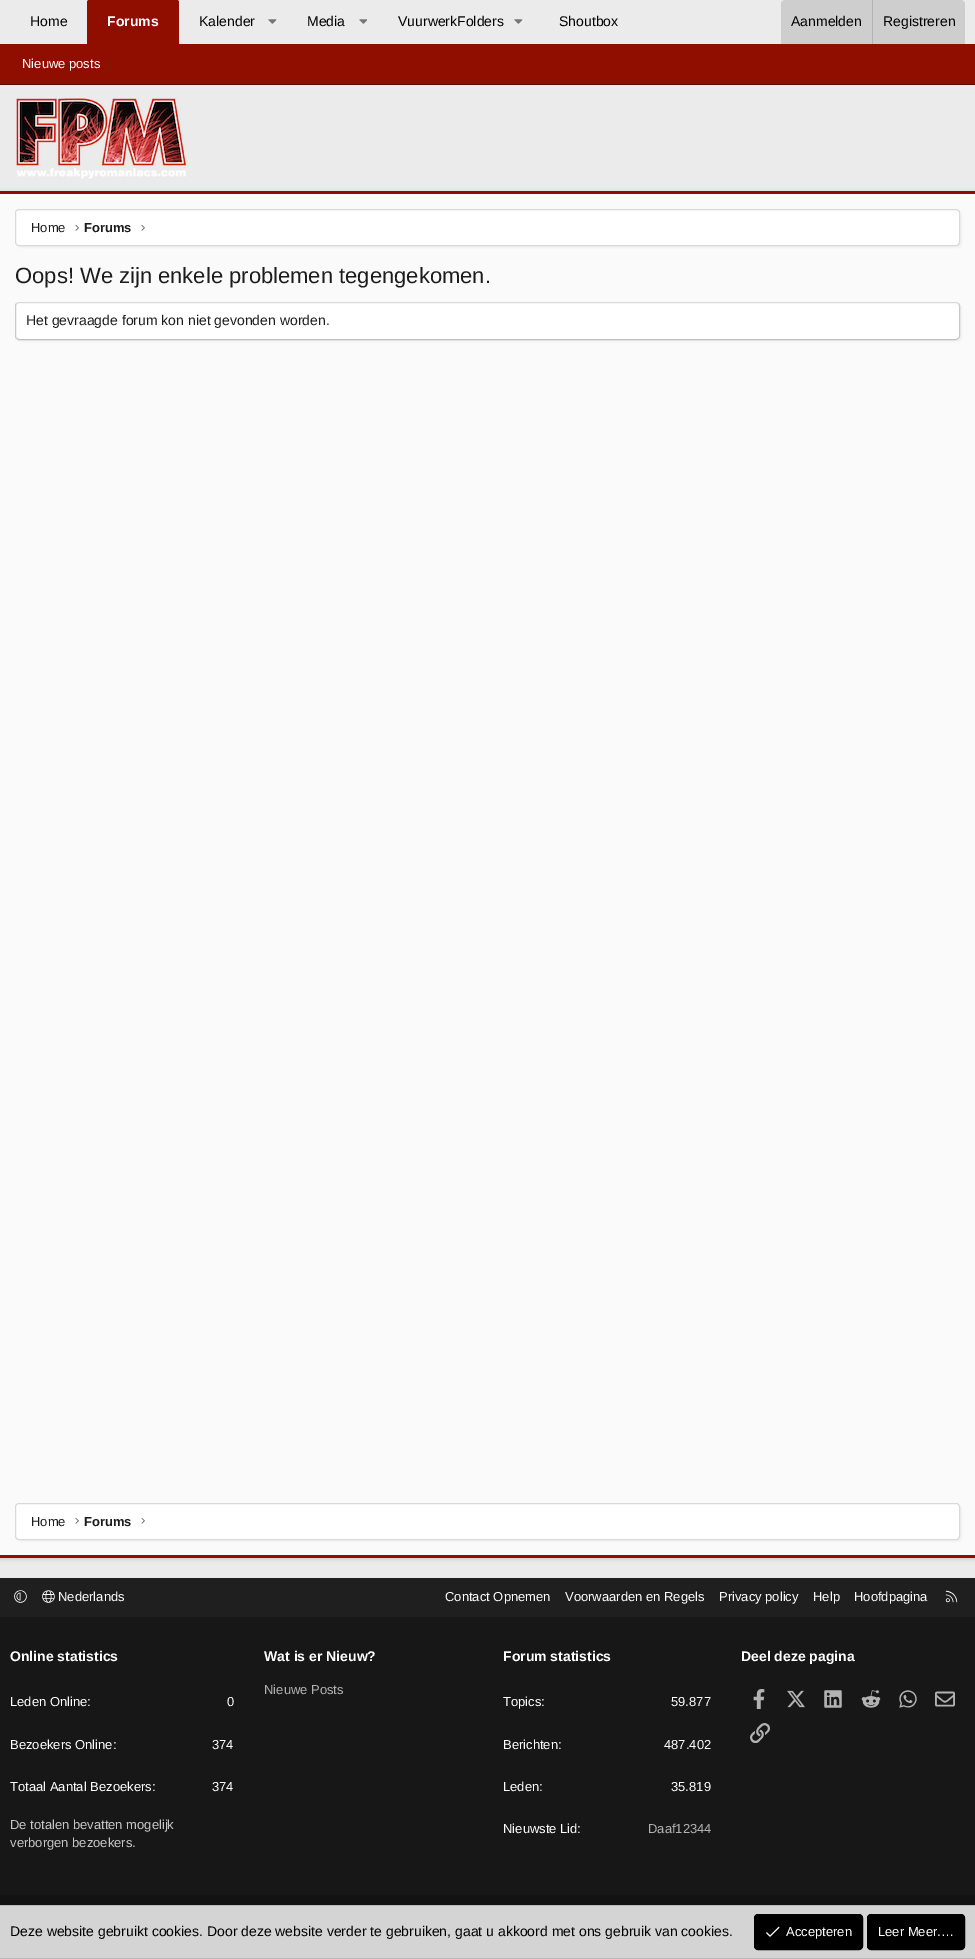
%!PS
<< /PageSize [975 1959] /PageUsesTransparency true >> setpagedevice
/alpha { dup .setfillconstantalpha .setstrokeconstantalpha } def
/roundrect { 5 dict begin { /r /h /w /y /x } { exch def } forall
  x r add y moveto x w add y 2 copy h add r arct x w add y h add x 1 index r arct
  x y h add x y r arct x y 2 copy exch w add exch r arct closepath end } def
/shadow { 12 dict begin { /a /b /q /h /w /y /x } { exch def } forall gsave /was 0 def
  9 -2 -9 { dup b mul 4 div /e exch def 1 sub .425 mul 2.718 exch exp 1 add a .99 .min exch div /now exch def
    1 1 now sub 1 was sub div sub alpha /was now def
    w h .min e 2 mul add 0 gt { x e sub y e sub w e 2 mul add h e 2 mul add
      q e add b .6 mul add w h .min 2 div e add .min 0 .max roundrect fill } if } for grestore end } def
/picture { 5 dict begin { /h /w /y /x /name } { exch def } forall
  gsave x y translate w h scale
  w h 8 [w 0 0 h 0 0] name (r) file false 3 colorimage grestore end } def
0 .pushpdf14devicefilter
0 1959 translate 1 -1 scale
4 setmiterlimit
0.922 setgray
0 0 975 1959 rectfill
/LiberationSans-Regular [14 0 0 -14 0 0] selectfont
0 setgray
30 26 moveto (Home) show
0.561 0.055 0 setrgbcolor
newpath 89 0 moveto 177 0 lineto 178 0 179 1 179 2 curveto 179 44 lineto 87 44 lineto 87 2 lineto 87 1 88 0 89 0 curveto closepath fill
/LiberationSans-Bold [14 0 0 -14 0 0] selectfont
1 setgray
107 26 moveto (Forums) show
/LiberationSans-Regular [14 0 0 -14 0 0] selectfont
0 setgray
199 26 moveto (Kalender) show
(img1.rgb) 268 19 9 5 picture
307 26 moveto (Media) show
(img2.rgb) 359 19 8 5 picture
398 26 moveto (VuurwerkFolders) show
(img1.rgb) 514 19 9 5 picture
559 26 moveto (Shoutbox) show
0.808 setgray
newpath 785 0 moveto 961 0 lineto 963 0 965 2 965 4 curveto 965 44 lineto 781 44 lineto 781 4 lineto 781 2 783 0 785 0 curveto closepath fill
0 setgray
791 26 moveto (Aanmelden) show
0.702 setgray
872 0 1 44 rectfill
0 setgray
883 26 moveto (Registreren) show
0.561 0.055 0 setrgbcolor
0 44 975 40 rectfill
0.361 0.035 0 setrgbcolor
0 84 975 1 rectfill
/LiberationSans-Regular [13 0 0 -13 0 0] selectfont
1 setgray
22 68 moveto (Nieuwe posts) show
(img3.rgb) 16 98 170 81 picture
0.761 setgray
0 192 975 1367 0 2 1 shadow
0.98 setgray
0 194 975 1361 rectfill
0.561 0.055 0 setrgbcolor
0 191 975 3 rectfill
0 1555 975 3 rectfill
0 setgray
17 211 945 37 4 1 0.04 shadow
1 setgray
15.5 209.5 944 36 3.5 roundrect gsave fill grestore
0.851 setgray
stroke
0.11 setgray
31 232 moveto (Home) show
(img4.rgb) 75 225 4 6 picture
/LiberationSans-Bold [13 0 0 -13 0 0] selectfont
84 232 moveto (Forums) show
(img4.rgb) 141 225 4 6 picture
/LiberationSans-Regular [22 0 0 -22 0 0] selectfont
15 283 moveto (Oops! We zijn enkele problemen tegengekomen.) show
0 setgray
17 304 945 38 4 1 0.04 shadow
1 setgray
15 302 945 38 4 roundrect fill
0.851 setgray
newpath 16.5 303.5 moveto 19 302.5 lineto 956 302.5 lineto 958.5 303.5 lineto stroke
0.788 setgray
newpath 958.5 303.5 moveto 959 304 959.5 305 959.5 306 curveto 959.5 336 lineto 959.5 337 959 338 958.5 338.5 curveto stroke
0.749 setgray
newpath 958.5 338.5 moveto 956 339.5 lineto 19 339.5 lineto 16.5 338.5 lineto stroke
0.788 setgray
newpath 16.5 338.5 moveto 16 338 15.5 337 15.5 336 curveto 15.5 306 lineto 15.5 305 16 304 16.5 303.5 curveto stroke
/LiberationSans-Regular [14 0 0 -14 0 0] selectfont
0.11 setgray
26 325 moveto (Het gevraagde forum kon niet gevonden worden.) show
0 setgray
17 1505 945 37 4 1 0.04 shadow
1 setgray
15.5 1503.5 944 36 3.5 roundrect gsave fill grestore
0.851 setgray
stroke
/LiberationSans-Regular [13 0 0 -13 0 0] selectfont
0.11 setgray
31 1526 moveto (Home) show
(img4.rgb) 75 1518 4 6 picture
/LiberationSans-Bold [13 0 0 -13 0 0] selectfont
84 1526 moveto (Forums) show
(img4.rgb) 141 1518 4 6 picture
0.122 setgray
0 1578 975 39 rectfill
(img5.rgb) 14 1590 13 13 picture
(img6.rgb) 42 1590 13 13 picture
/LiberationSans-Regular [13 0 0 -13 0 0] selectfont
1 setgray
58 1601 moveto (Nederlands) show
445 1601 moveto (Contact Opnemen) show
565 1601 moveto (Voorwaarden en Regels) show
719 1601 moveto (Privacy policy) show
813 1601 moveto (Help) show
854 1601 moveto (Hoofdpagina) show
(img7.rgb) 945 1590 13 13 picture
0.09 setgray
0 1617 975 278 rectfill
/LiberationSans-Bold [14 0 0 -14 0 0] selectfont
1 setgray
10 1661 moveto (Online statistics) show
/LiberationSans-Regular [13 0 0 -13 0 0] selectfont
10 1706 moveto (Leden Online:) show
227 1706 moveto (0) show
10 1749 moveto (Bezoekers Online:) show
212 1749 moveto (374) show
10 1791 moveto (Totaal Aantal Bezoekers:) show
212 1791 moveto (374) show
0.78 setgray
10 1829 moveto (De totalen bevatten mogelijk) show
10 1847 moveto (verborgen bezoekers.) show
/LiberationSans-Bold [14 0 0 -14 0 0] selectfont
1 setgray
264 1661 moveto (Wat is er Nieuw?) show
/LiberationSans-Regular [13 0 0 -13 0 0] selectfont
0.698 setgray
264 1694 moveto (Nieuwe Posts) show
/LiberationSans-Bold [14 0 0 -14 0 0] selectfont
1 setgray
503 1661 moveto (Forum statistics) show
/LiberationSans-Regular [13 0 0 -13 0 0] selectfont
503 1706 moveto (Topics:) show
671 1706 moveto (59.877) show
503 1749 moveto (Berichten:) show
664 1749 moveto (487.402) show
503 1791 moveto (Leden:) show
671 1791 moveto (35.819) show
503 1833 moveto (Nieuwste Lid:) show
0.698 setgray
648 1833 moveto (Daaf12344) show
/LiberationSans-Bold [14 0 0 -14 0 0] selectfont
1 setgray
741 1661 moveto (Deel deze pagina) show
(img8.rgb) 753 1689 12 20 picture
(img9.rgb) 787 1690 18 18 picture
(img10.rgb) 824 1690 18 18 picture
(img11.rgb) 861 1690 20 18 picture
(img12.rgb) 899 1690 18 18 picture
(img13.rgb) 935 1691 20 16 picture
(img14.rgb) 750 1723 20 20 picture
0.071 setgray
0 1895 975 10 rectfill
0.831 setgray
0 1906 975 52 rectfill
0.729 setgray
0 1905 975 1 rectfill
0 1958 975 1 rectfill
/LiberationSans-Regular [14 0 0 -14 0 0] selectfont
0 setgray
10 1936 moveto (Deze website gebruikt cookies. Door deze website verder te gebruiken, gaat u akkoord met ons gebruik van cookies.) show
754.5 1914.5 108 35 3.5 roundrect gsave fill grestore
stroke
(img15.rgb) 766 1926 14 11 picture
/LiberationSans-Regular [13 0 0 -13 0 0] selectfont
1 setgray
786 1936 moveto (Accepteren) show
0 setgray
867.5 1914.5 97 35 3.5 roundrect gsave fill grestore
stroke
1 setgray
878 1936 moveto (Leer Meer.…) show
.poppdf14devicefilter showpage
